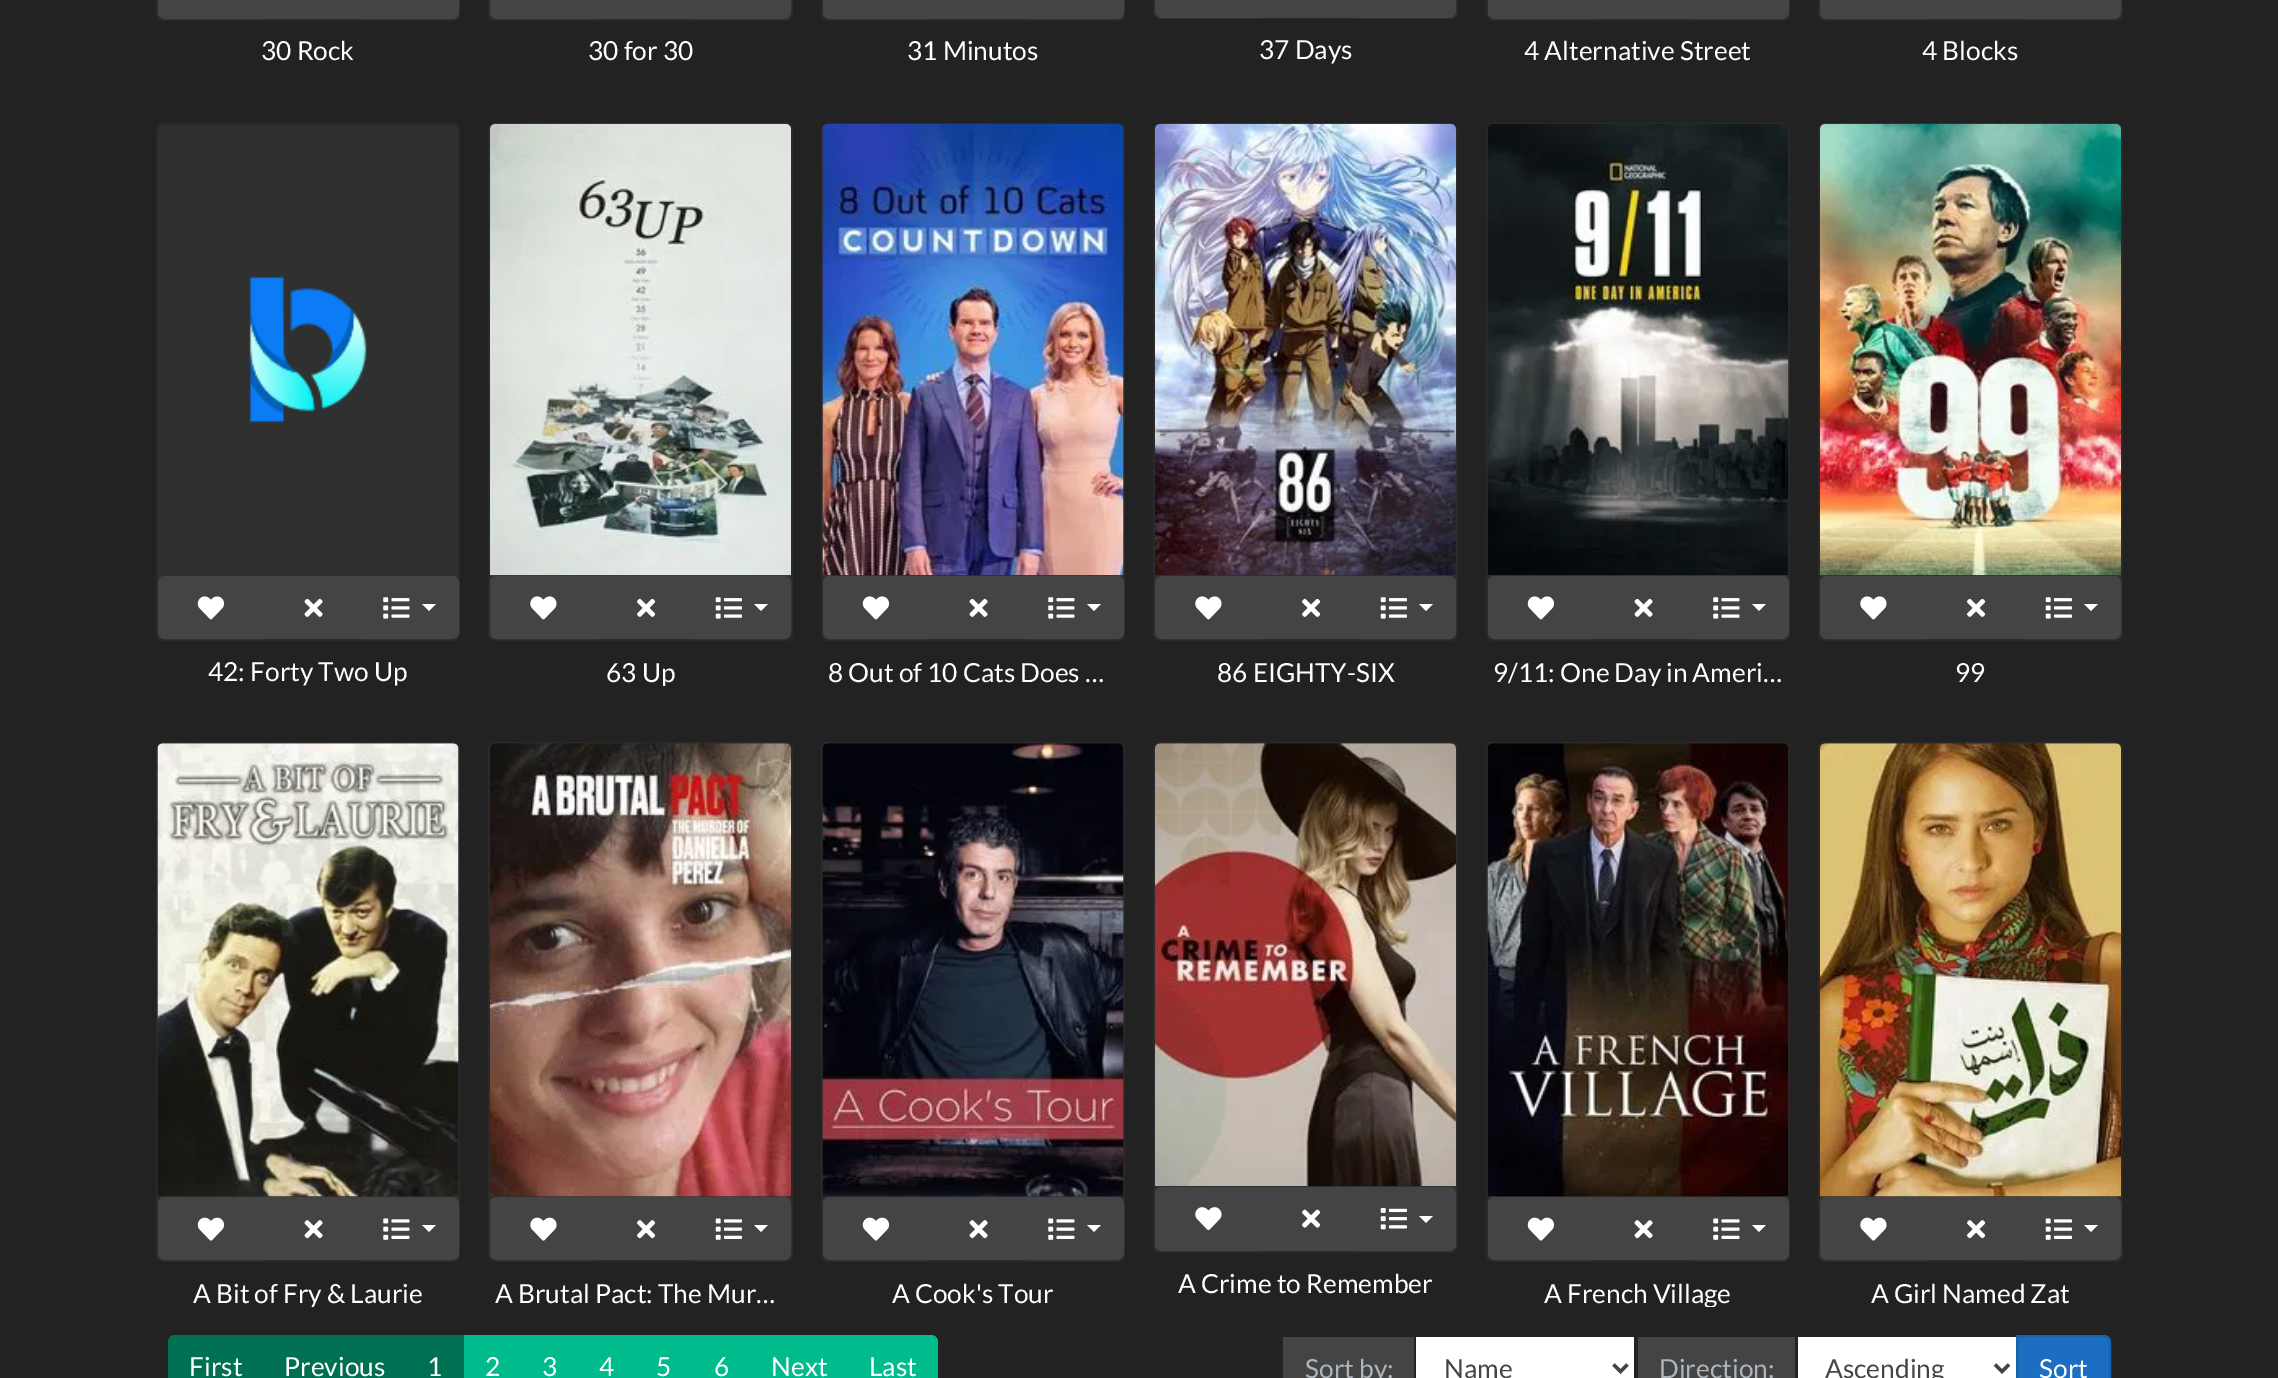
%!PS
<< /PageSize [2278 1378] /PageUsesTransparency true >> setpagedevice
/alpha { dup .setfillconstantalpha .setstrokeconstantalpha } def
/roundrect { 5 dict begin { /r /h /w /y /x } { exch def } forall
  x r add y moveto x w add y 2 copy h add r arct x w add y h add x 1 index r arct
  x y h add x y r arct x y 2 copy exch w add exch r arct closepath end } def
/picture { 5 dict begin { /h /w /y /x /name } { exch def } forall
  gsave x y translate w h scale
  w h 8 [w 0 0 h 0 0] name (r) file false 3 colorimage grestore end } def
0 .pushpdf14devicefilter
0 1378 translate 1 -1 scale
4 setmiterlimit
0.133 setgray
0 0 2278 1378 rectfill
0.188 setgray
156 -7 304 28 7 roundrect fill
0.12 alpha
0 setgray
2 setlinewidth
157 -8 302 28 6 roundrect stroke
1 alpha
0.267 setgray
newpath 165 -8 moveto 263 -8 lineto 263 18 lineto 165 18 lineto 161.5 18 159 15.5 159 12 curveto 159 -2 lineto 159 -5.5 161.5 -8 165 -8 curveto closepath gsave fill grestore
stroke
264 0 97 19 rectfill
newpath 362 -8 moveto 452 -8 lineto 455.5 -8 458 -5.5 458 -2 curveto 458 12 lineto 458 15.5 455.5 18 452 18 curveto 362 18 lineto closepath gsave fill grestore
stroke
/Lato-Regular [26.25 0 0 -26.25 0 0] selectfont
1 setgray
261 60 moveto (30 Rock) show
0.188 setgray
488 -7 305 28 7 roundrect fill
0.12 alpha
0 setgray
489 -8 303 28 6 roundrect stroke
1 alpha
0.267 setgray
newpath 497 -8 moveto 596 -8 lineto 596 18 lineto 497 18 lineto 493.5 18 491 15.5 491 12 curveto 491 -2 lineto 491 -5.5 493.5 -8 497 -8 curveto closepath gsave fill grestore
stroke
597 0 96 19 rectfill
newpath 694 -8 moveto 784 -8 lineto 787.5 -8 790 -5.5 790 -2 curveto 790 12 lineto 790 15.5 787.5 18 784 18 curveto 694 18 lineto closepath gsave fill grestore
stroke
1 setgray
588 60 moveto (30 for 30) show
0.188 setgray
821 -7 304 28 7 roundrect fill
0.12 alpha
0 setgray
822 -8 302 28 6 roundrect stroke
1 alpha
0.267 setgray
newpath 830 -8 moveto 928 -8 lineto 928 18 lineto 830 18 lineto 826.5 18 824 15.5 824 12 curveto 824 -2 lineto 824 -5.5 826.5 -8 830 -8 curveto closepath gsave fill grestore
stroke
929 0 97 19 rectfill
newpath 1027 -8 moveto 1117 -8 lineto 1120.5 -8 1123 -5.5 1123 -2 curveto 1123 12 lineto 1123 15.5 1120.5 18 1117 18 curveto 1027 18 lineto closepath gsave fill grestore
stroke
1 setgray
907 60 moveto (31 Minutos) show
0.188 setgray
1153 -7 305 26 7 roundrect fill
0.12 alpha
0 setgray
1154 -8 303 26 6 roundrect stroke
1 alpha
0.267 setgray
newpath 1162 -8 moveto 1261 -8 lineto 1261 17 lineto 1162 17 lineto 1158.5 17 1156 14.5 1156 11 curveto 1156 -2 lineto 1156 -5.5 1158.5 -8 1162 -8 curveto closepath gsave fill grestore
stroke
1262 0 96 18 rectfill
newpath 1359 -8 moveto 1449 -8 lineto 1452.5 -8 1455 -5.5 1455 -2 curveto 1455 11 lineto 1455 14.5 1452.5 17 1449 17 curveto 1359 17 lineto closepath gsave fill grestore
stroke
1 setgray
1259 59 moveto (37 Days) show
0.188 setgray
1486 -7 304 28 7 roundrect fill
0.12 alpha
0 setgray
1487 -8 302 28 6 roundrect stroke
1 alpha
0.267 setgray
newpath 1495 -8 moveto 1593 -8 lineto 1593 18 lineto 1495 18 lineto 1491.5 18 1489 15.5 1489 12 curveto 1489 -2 lineto 1489 -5.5 1491.5 -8 1495 -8 curveto closepath gsave fill grestore
stroke
1594 0 97 19 rectfill
newpath 1692 -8 moveto 1782 -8 lineto 1785.5 -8 1788 -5.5 1788 -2 curveto 1788 12 lineto 1788 15.5 1785.5 18 1782 18 curveto 1692 18 lineto closepath gsave fill grestore
stroke
1 setgray
1524 60 moveto (4 Alternative Street) show
0.188 setgray
1818 -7 305 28 7 roundrect fill
0.12 alpha
0 setgray
1819 -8 303 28 6 roundrect stroke
1 alpha
0.267 setgray
newpath 1827 -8 moveto 1926 -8 lineto 1926 18 lineto 1827 18 lineto 1823.5 18 1821 15.5 1821 12 curveto 1821 -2 lineto 1821 -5.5 1823.5 -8 1827 -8 curveto closepath gsave fill grestore
stroke
1927 0 96 19 rectfill
newpath 2024 -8 moveto 2114 -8 lineto 2117.5 -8 2120 -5.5 2120 -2 curveto 2120 12 lineto 2120 15.5 2117.5 18 2114 18 curveto 2024 18 lineto closepath gsave fill grestore
stroke
1 setgray
1922 60 moveto (4 Blocks) show
0.188 setgray
156 123 304 518 7 roundrect fill
0.12 alpha
0 setgray
157 124 302 516 6 roundrect stroke
1 alpha
(img1.rgb) 249 276 118 148 picture
0.267 setgray
newpath 165 577 moveto 263 577 lineto 263 638 lineto 165 638 lineto 161.5 638 159 635.5 159 632 curveto 159 583 lineto 159 579.5 161.5 577 165 577 curveto closepath gsave fill grestore
stroke
(img2.rgb) 197 596 28 24 picture
264 576 97 63 rectfill
(img3.rgb) 304 598 19 19 picture
newpath 362 577 moveto 452 577 lineto 455.5 577 458 579.5 458 583 curveto 458 632 lineto 458 635.5 455.5 638 452 638 curveto 362 638 lineto closepath gsave fill grestore
stroke
(img4.rgb) 383 597 27 22 picture
1 setgray
newpath 422 604 moveto 436 604 lineto 429 611 lineto closepath fill
208 681 moveto (42: Forty Two Up) show
0.188 setgray
488 123 305 518 7 roundrect fill
0.12 alpha
0 setgray
489 124 303 516 6 roundrect stroke
1 alpha
(img5.rgb) 490 123 301 453 picture
0.267 setgray
newpath 497 577 moveto 596 577 lineto 596 638 lineto 497 638 lineto 493.5 638 491 635.5 491 632 curveto 491 583 lineto 491 579.5 493.5 577 497 577 curveto closepath gsave fill grestore
stroke
(img6.rgb) 530 596 27 24 picture
597 576 96 63 rectfill
(img7.rgb) 637 598 19 19 picture
newpath 694 577 moveto 784 577 lineto 787.5 577 790 579.5 790 583 curveto 790 632 lineto 790 635.5 787.5 638 784 638 curveto 694 638 lineto closepath gsave fill grestore
stroke
(img8.rgb) 715 597 27 22 picture
1 setgray
newpath 754 604 moveto 768 604 lineto 761 611 lineto closepath fill
gsave
488 655 305 31 rectclip
606 682 moveto (63 Up) show
grestore
0.188 setgray
821 123 304 518 7 roundrect fill
0.12 alpha
0 setgray
822 124 302 516 6 roundrect stroke
1 alpha
(img9.rgb) 822 123 302 453 picture
0.267 setgray
newpath 830 577 moveto 928 577 lineto 928 638 lineto 830 638 lineto 826.5 638 824 635.5 824 632 curveto 824 583 lineto 824 579.5 826.5 577 830 577 curveto closepath gsave fill grestore
stroke
(img2.rgb) 862 596 28 24 picture
929 576 97 63 rectfill
(img3.rgb) 969 598 19 19 picture
newpath 1027 577 moveto 1117 577 lineto 1120.5 577 1123 579.5 1123 583 curveto 1123 632 lineto 1123 635.5 1120.5 638 1117 638 curveto 1027 638 lineto closepath gsave fill grestore
stroke
(img4.rgb) 1048 597 27 22 picture
1 setgray
newpath 1087 604 moveto 1101 604 lineto 1094 611 lineto closepath fill
828 682 moveto (8 Out of 10 Cats Does …) show
0.188 setgray
1153 123 305 518 7 roundrect fill
0.12 alpha
0 setgray
1154 124 303 516 6 roundrect stroke
1 alpha
(img10.rgb) 1155 123 301 453 picture
0.267 setgray
newpath 1162 577 moveto 1261 577 lineto 1261 638 lineto 1162 638 lineto 1158.5 638 1156 635.5 1156 632 curveto 1156 583 lineto 1156 579.5 1158.5 577 1162 577 curveto closepath gsave fill grestore
stroke
(img6.rgb) 1195 596 27 24 picture
1262 576 96 63 rectfill
(img7.rgb) 1302 598 19 19 picture
newpath 1359 577 moveto 1449 577 lineto 1452.5 577 1455 579.5 1455 583 curveto 1455 632 lineto 1455 635.5 1452.5 638 1449 638 curveto 1359 638 lineto closepath gsave fill grestore
stroke
(img8.rgb) 1380 597 27 22 picture
1 setgray
newpath 1419 604 moveto 1433 604 lineto 1426 611 lineto closepath fill
1217 682 moveto (86 EIGHTY-SIX) show
0.188 setgray
1486 123 304 518 7 roundrect fill
0.12 alpha
0 setgray
1487 124 302 516 6 roundrect stroke
1 alpha
(img11.rgb) 1487 124 302 451 picture
0.267 setgray
newpath 1495 577 moveto 1593 577 lineto 1593 638 lineto 1495 638 lineto 1491.5 638 1489 635.5 1489 632 curveto 1489 583 lineto 1489 579.5 1491.5 577 1495 577 curveto closepath gsave fill grestore
stroke
(img2.rgb) 1527 596 28 24 picture
1594 576 97 63 rectfill
(img3.rgb) 1634 598 19 19 picture
newpath 1692 577 moveto 1782 577 lineto 1785.5 577 1788 579.5 1788 583 curveto 1788 632 lineto 1788 635.5 1785.5 638 1782 638 curveto 1692 638 lineto closepath gsave fill grestore
stroke
(img4.rgb) 1713 597 27 22 picture
1 setgray
newpath 1752 604 moveto 1766 604 lineto 1759 611 lineto closepath fill
gsave
1486 655 304 31 rectclip
1493 682 moveto (9/11: One Day in Ameri…) show
grestore
0.188 setgray
1818 123 305 518 7 roundrect fill
0.12 alpha
0 setgray
1819 124 303 516 6 roundrect stroke
1 alpha
(img12.rgb) 1820 123 301 453 picture
0.267 setgray
newpath 1827 577 moveto 1926 577 lineto 1926 638 lineto 1827 638 lineto 1823.5 638 1821 635.5 1821 632 curveto 1821 583 lineto 1821 579.5 1823.5 577 1827 577 curveto closepath gsave fill grestore
stroke
(img6.rgb) 1860 596 27 24 picture
1927 576 96 63 rectfill
(img7.rgb) 1967 598 19 19 picture
newpath 2024 577 moveto 2114 577 lineto 2117.5 577 2120 579.5 2120 583 curveto 2120 632 lineto 2120 635.5 2117.5 638 2114 638 curveto 2024 638 lineto closepath gsave fill grestore
stroke
(img8.rgb) 2045 597 27 22 picture
1 setgray
newpath 2084 604 moveto 2098 604 lineto 2091 611 lineto closepath fill
1955 682 moveto (99) show
0.188 setgray
156 742 304 520 7 roundrect fill
0.12 alpha
0 setgray
157 743 302 518 6 roundrect stroke
1 alpha
(img13.rgb) 157 743 302 454 picture
0.267 setgray
newpath 165 1198 moveto 263 1198 lineto 263 1259 lineto 165 1259 lineto 161.5 1259 159 1256.5 159 1253 curveto 159 1204 lineto 159 1200.5 161.5 1198 165 1198 curveto closepath gsave fill grestore
stroke
(img14.rgb) 197 1217 28 24 picture
264 1197 97 63 rectfill
(img15.rgb) 304 1220 19 19 picture
newpath 362 1198 moveto 452 1198 lineto 455.5 1198 458 1200.5 458 1204 curveto 458 1253 lineto 458 1256.5 455.5 1259 452 1259 curveto 362 1259 lineto closepath gsave fill grestore
stroke
(img16.rgb) 383 1218 27 22 picture
1 setgray
newpath 422 1225 moveto 436 1225 lineto 429 1232 lineto closepath fill
gsave
156 1276 304 31 rectclip
193 1303 moveto (A Bit of Fry & Laurie) show
grestore
0.188 setgray
488 742 305 520 7 roundrect fill
0.12 alpha
0 setgray
489 743 303 518 6 roundrect stroke
1 alpha
(img17.rgb) 490 743 301 454 picture
0.267 setgray
newpath 497 1198 moveto 596 1198 lineto 596 1259 lineto 497 1259 lineto 493.5 1259 491 1256.5 491 1253 curveto 491 1204 lineto 491 1200.5 493.5 1198 497 1198 curveto closepath gsave fill grestore
stroke
(img18.rgb) 530 1217 27 24 picture
597 1197 96 63 rectfill
(img19.rgb) 637 1220 19 19 picture
newpath 694 1198 moveto 784 1198 lineto 787.5 1198 790 1200.5 790 1204 curveto 790 1253 lineto 790 1256.5 787.5 1259 784 1259 curveto 694 1259 lineto closepath gsave fill grestore
stroke
(img20.rgb) 715 1218 27 22 picture
1 setgray
newpath 754 1225 moveto 768 1225 lineto 761 1232 lineto closepath fill
495 1303 moveto (A Brutal Pact: The Mur…) show
0.188 setgray
821 742 304 520 7 roundrect fill
0.12 alpha
0 setgray
822 743 302 518 6 roundrect stroke
1 alpha
(img21.rgb) 822 743 302 454 picture
0.267 setgray
newpath 830 1198 moveto 928 1198 lineto 928 1259 lineto 830 1259 lineto 826.5 1259 824 1256.5 824 1253 curveto 824 1204 lineto 824 1200.5 826.5 1198 830 1198 curveto closepath gsave fill grestore
stroke
(img14.rgb) 862 1217 28 24 picture
929 1197 97 63 rectfill
(img15.rgb) 969 1220 19 19 picture
newpath 1027 1198 moveto 1117 1198 lineto 1120.5 1198 1123 1200.5 1123 1204 curveto 1123 1253 lineto 1123 1256.5 1120.5 1259 1117 1259 curveto 1027 1259 lineto closepath gsave fill grestore
stroke
(img16.rgb) 1048 1218 27 22 picture
1 setgray
newpath 1087 1225 moveto 1101 1225 lineto 1094 1232 lineto closepath fill
892 1303 moveto (A Cook's Tour) show
0.188 setgray
1153 742 305 511 7 roundrect fill
0.12 alpha
0 setgray
1154 743 303 509 6 roundrect stroke
1 alpha
(img22.rgb) 1155 743 301 443 picture
0.267 setgray
newpath 1162 1188 moveto 1261 1188 lineto 1261 1250 lineto 1162 1250 lineto 1158.5 1250 1156 1247.5 1156 1244 curveto 1156 1194 lineto 1156 1190.5 1158.5 1188 1162 1188 curveto closepath gsave fill grestore
stroke
(img23.rgb) 1195 1207 27 24 picture
1262 1187 96 64 rectfill
(img24.rgb) 1302 1209 19 19 picture
newpath 1359 1188 moveto 1449 1188 lineto 1452.5 1188 1455 1190.5 1455 1194 curveto 1455 1244 lineto 1455 1247.5 1452.5 1250 1449 1250 curveto 1359 1250 lineto closepath gsave fill grestore
stroke
(img25.rgb) 1380 1208 27 22 picture
1 setgray
newpath 1419 1216 moveto 1433 1216 lineto 1426 1223 lineto closepath fill
1178 1293 moveto (A Crime to Remember) show
0.188 setgray
1486 742 304 520 7 roundrect fill
0.12 alpha
0 setgray
1487 743 302 518 6 roundrect stroke
1 alpha
(img26.rgb) 1487 743 302 454 picture
0.267 setgray
newpath 1495 1198 moveto 1593 1198 lineto 1593 1259 lineto 1495 1259 lineto 1491.5 1259 1489 1256.5 1489 1253 curveto 1489 1204 lineto 1489 1200.5 1491.5 1198 1495 1198 curveto closepath gsave fill grestore
stroke
(img14.rgb) 1527 1217 28 24 picture
1594 1197 97 63 rectfill
(img15.rgb) 1634 1220 19 19 picture
newpath 1692 1198 moveto 1782 1198 lineto 1785.5 1198 1788 1200.5 1788 1204 curveto 1788 1253 lineto 1788 1256.5 1785.5 1259 1782 1259 curveto 1692 1259 lineto closepath gsave fill grestore
stroke
(img16.rgb) 1713 1218 27 22 picture
1 setgray
newpath 1752 1225 moveto 1766 1225 lineto 1759 1232 lineto closepath fill
gsave
1486 1276 304 31 rectclip
1544 1303 moveto (A French Village) show
grestore
0.188 setgray
1818 742 305 520 7 roundrect fill
0.12 alpha
0 setgray
1819 743 303 518 6 roundrect stroke
1 alpha
(img27.rgb) 1820 743 301 454 picture
0.267 setgray
newpath 1827 1198 moveto 1926 1198 lineto 1926 1259 lineto 1827 1259 lineto 1823.5 1259 1821 1256.5 1821 1253 curveto 1821 1204 lineto 1821 1200.5 1823.5 1198 1827 1198 curveto closepath gsave fill grestore
stroke
(img18.rgb) 1860 1217 27 24 picture
1927 1197 96 63 rectfill
(img19.rgb) 1967 1220 19 19 picture
newpath 2024 1198 moveto 2114 1198 lineto 2117.5 1198 2120 1200.5 2120 1204 curveto 2120 1253 lineto 2120 1256.5 2117.5 1259 2114 1259 curveto 2024 1259 lineto closepath gsave fill grestore
stroke
(img20.rgb) 2045 1218 27 22 picture
1 setgray
newpath 2084 1225 moveto 2098 1225 lineto 2091 1232 lineto closepath fill
1871 1303 moveto (A Girl Named Zat) show
0 0.439 0.325 setrgbcolor
newpath 175 1335 moveto 263 1335 lineto 263 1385 lineto 175 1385 lineto 171 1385 168 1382 168 1378 curveto 168 1342 lineto 168 1338 171 1335 175 1335 curveto closepath fill
1 setgray
189 1376 moveto (First) show
0 0.439 0.325 setrgbcolor
263 1335 201 43 rectfill
1 setgray
284 1376 moveto (Previous) show
427 1376 moveto (1) show
0 0.737 0.549 setrgbcolor
464 1335 385 43 rectfill
1 setgray
485 1376 moveto (2) show
542 1376 moveto (3) show
599 1376 moveto (4) show
656 1376 moveto (5) show
714 1376 moveto (6) show
771 1376 moveto (Next) show
0 0.737 0.549 setrgbcolor
newpath 849 1335 moveto 931 1335 lineto 935 1335 938 1338 938 1342 curveto 938 1378 lineto 938 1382 935 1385 931 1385 curveto 849 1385 lineto closepath fill
1 setgray
869 1376 moveto (Last) show
0.267 setgray
1283 1337 131 41 rectfill
0.678 0.71 0.741 setrgbcolor
1305 1378 moveto (Sort by:) show
1 setgray
1416 1337 218 41 rectfill
0.267 setgray
3.5 setlinewidth
newpath 1613.5 1364.5 moveto 1620.5 1371.5 lineto 1627.5 1364.5 lineto stroke
1444 1378 moveto (Name) show
1638 1337 157 41 rectfill
0.678 0.71 0.741 setrgbcolor
1659 1378 moveto (Direction:) show
1 setgray
1798 1337 218 41 rectfill
0.267 setgray
newpath 1995 1364.5 moveto 2002 1371.5 lineto 2009 1364.5 lineto stroke
1825 1378 moveto (Ascending) show
0.106 0.431 0.761 setrgbcolor
newpath 2017 1336 moveto 2104 1336 lineto 2107.5 1336 2110 1338.5 2110 1342 curveto 2110 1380 lineto 2110 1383.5 2107.5 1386 2104 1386 curveto 2017 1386 lineto closepath gsave fill grestore
0.094 0.38 0.675 setrgbcolor
2 setlinewidth
stroke
1 setgray
2039 1378 moveto (Sort) show
.poppdf14devicefilter showpage
